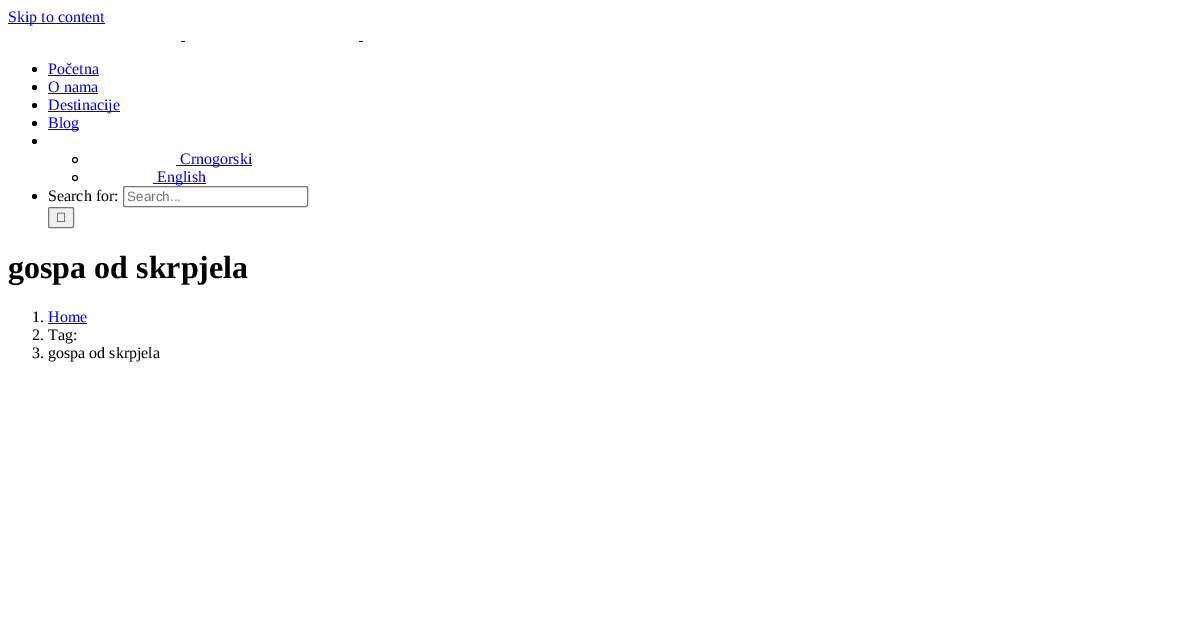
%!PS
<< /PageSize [1183 641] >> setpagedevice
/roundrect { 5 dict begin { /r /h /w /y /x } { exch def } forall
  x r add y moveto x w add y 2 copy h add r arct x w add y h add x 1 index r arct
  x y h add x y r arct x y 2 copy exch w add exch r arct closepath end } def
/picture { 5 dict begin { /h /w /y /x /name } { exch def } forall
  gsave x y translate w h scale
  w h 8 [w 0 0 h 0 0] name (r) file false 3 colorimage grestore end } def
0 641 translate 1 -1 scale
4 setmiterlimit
1 setgray
0 0 1183 641 rectfill
0 0 0.933 setrgbcolor
8 23 97 1 rectfill
/LiberationSerif-Regular [16 0 0 -16 0 0] selectfont
8 22 moveto (Skip to content) show
181 41 4 1 rectfill
359 41 4 1 rectfill
0 setgray
newpath 34.5 69.5 2.5 0 360 arc closepath fill
0 0 0.933 setrgbcolor
48 74 moveto (Početna) show
48 75 51 1 rectfill
0 setgray
newpath 34.5 87.5 2.5 0 360 arc closepath fill
0 0 0.933 setrgbcolor
48 92 moveto (O nama) show
48 93 50 1 rectfill
0 setgray
newpath 34.5 105.5 2.5 0 360 arc closepath fill
0 0 0.933 setrgbcolor
48 111 72 1 rectfill
48 110 moveto (Destinacije) show
0 setgray
newpath 34.5 123.5 2.5 0 360 arc closepath fill
0 0 0.933 setrgbcolor
48 129 31 1 rectfill
48 128 moveto (Blog) show
0 setgray
newpath 34.5 141.5 2.5 0 360 arc closepath fill
newpath 75 160 2.5 0 360 arc closepath stroke
0 0 0.933 setrgbcolor
176 165 76 1 rectfill
180 164 moveto (Crnogorski) show
0 setgray
newpath 75 178 2.5 0 360 arc closepath stroke
0 0 0.933 setrgbcolor
153 183 53 1 rectfill
157 182 moveto (English) show
0 setgray
newpath 34.5 196.5 2.5 0 360 arc closepath fill
48 201 moveto (Search for:) show
0.463 setgray
123.5 186.5 184 20 1.5 roundrect stroke
/LiberationSans-Regular [13.5 0 0 -13.5 0 0] selectfont
0.459 setgray
127 201 moveto (Search...) show
0.937 setgray
48.5 207.5 25 20 1.5 roundrect gsave fill grestore
0.463 setgray
stroke
(img1.rgb) 57 212 8 10 picture
/LiberationSerif-Bold [32 0 0 -32 0 0] selectfont
0 setgray
8 278 moveto (gospa od skrpjela) show
/LiberationSerif-Regular [16 0 0 -16 0 0] selectfont
32 322 moveto (1.) show
0 0 0.933 setrgbcolor
48 322 moveto (Home) show
48 323 39 1 rectfill
0 setgray
32 340 moveto (2. Tag:) show
32 358 moveto (3. gospa od skrpjela) show
showpage
